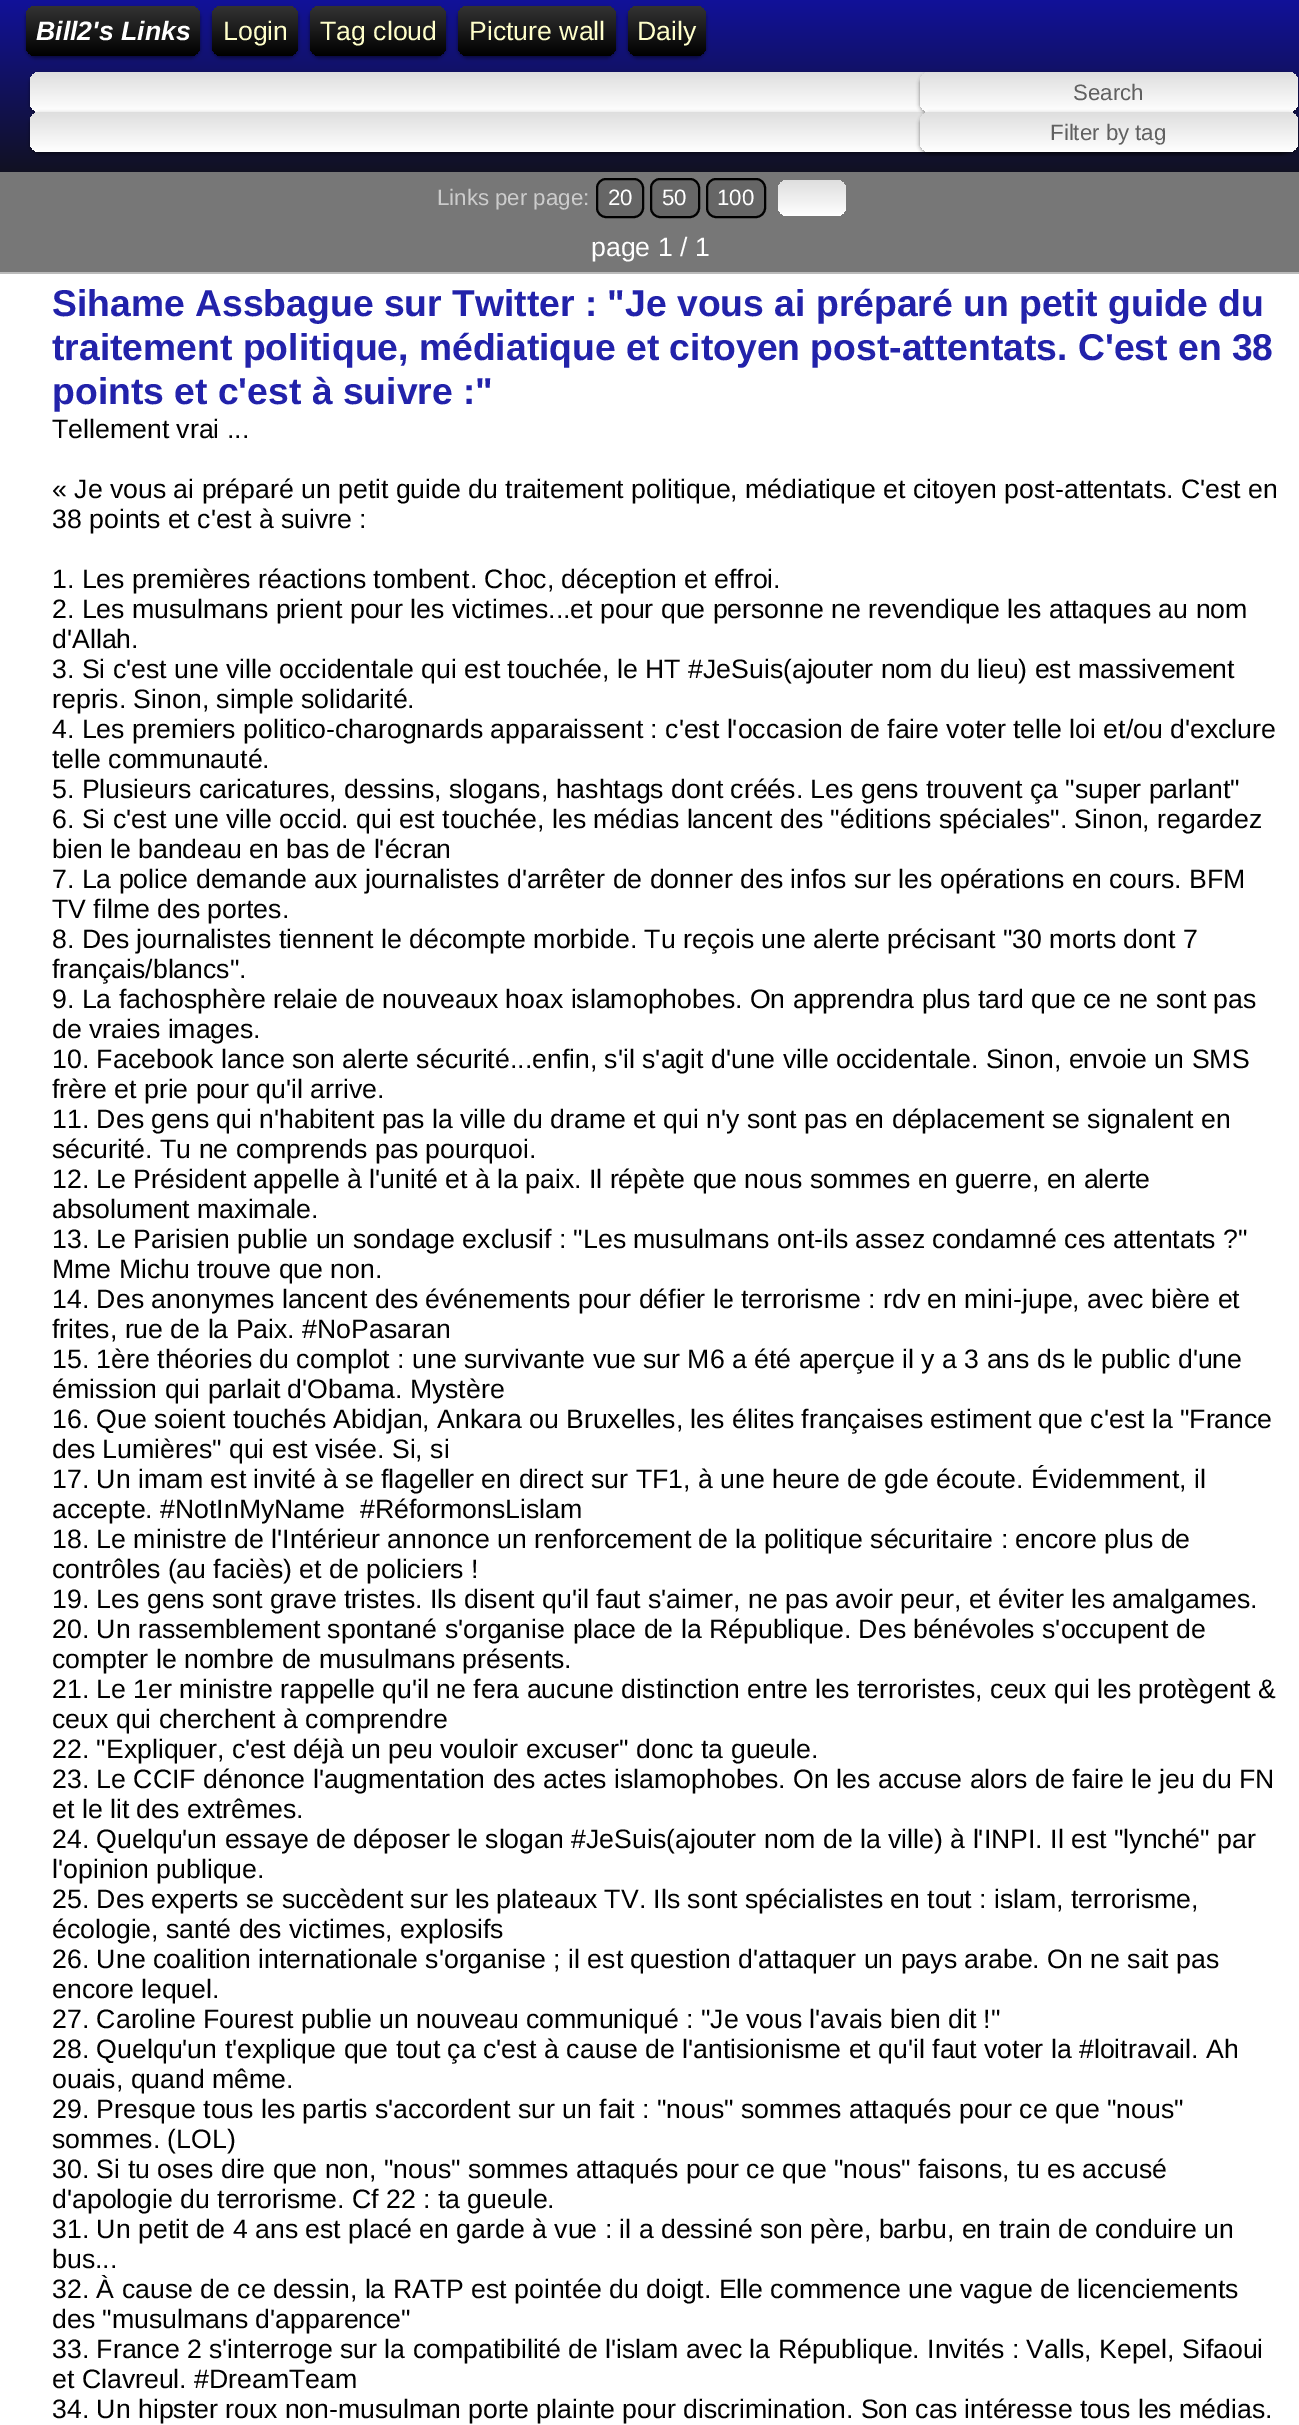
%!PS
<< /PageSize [1299 2425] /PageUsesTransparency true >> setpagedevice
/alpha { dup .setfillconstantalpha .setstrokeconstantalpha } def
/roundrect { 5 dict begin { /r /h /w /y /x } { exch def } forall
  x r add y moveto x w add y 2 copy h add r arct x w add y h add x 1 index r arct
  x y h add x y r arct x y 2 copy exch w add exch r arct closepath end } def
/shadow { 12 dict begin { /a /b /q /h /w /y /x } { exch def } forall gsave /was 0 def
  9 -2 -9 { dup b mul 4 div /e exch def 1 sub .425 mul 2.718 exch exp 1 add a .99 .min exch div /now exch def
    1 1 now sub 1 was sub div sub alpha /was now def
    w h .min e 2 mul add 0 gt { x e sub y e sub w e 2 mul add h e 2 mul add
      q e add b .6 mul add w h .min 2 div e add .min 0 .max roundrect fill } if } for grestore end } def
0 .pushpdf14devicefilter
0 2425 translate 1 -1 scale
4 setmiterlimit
1 setgray
0 0 1299 2425 rectfill
gsave newpath 0 0 moveto 1299 0 lineto 1299 172 lineto 0 172 lineto closepath clip newpath
<< /ShadingType 2 /ColorSpace /DeviceRGB /Coords [650 0 650 172] /Extend [true true] /Function << /FunctionType 2 /Domain [0 1] /C0 [0.067 0.067 0.6] /C1 [0.067 0.067 0.133] /N 1 >> >> shfill grestore
0 setgray
26 8 174 50 10 2 0.5 shadow
gsave 26 6 174 50 10 roundrect clip newpath
<< /ShadingType 2 /ColorSpace /DeviceRGB /Coords [113 6 113 56] /Extend [true true] /Function << /FunctionType 2 /Domain [0 1] /C0 [0.2 0.2 0.2] /C1 [0 0 0] /N 1 >> >> shfill grestore
/LiberationSans-BoldItalic [26.65 0 0 -26.65 0 0] selectfont
1 setgray
36 40 moveto (Bill2's Links) show
0 setgray
212 8 86 50 10 2 0.5 shadow
gsave 212 6 86 50 10 roundrect clip newpath
<< /ShadingType 2 /ColorSpace /DeviceRGB /Coords [255 6 255 56] /Extend [true true] /Function << /FunctionType 2 /Domain [0 1] /C0 [0.2 0.2 0.2] /C1 [0 0 0] /N 1 >> >> shfill grestore
/LiberationSans-Regular [26.65 0 0 -26.65 0 0] selectfont
1 1 0.792 setrgbcolor
223 40 moveto (Login) show
0 setgray
310 8 136 50 10 2 0.5 shadow
gsave 310 6 136 50 10 roundrect clip newpath
<< /ShadingType 2 /ColorSpace /DeviceRGB /Coords [378 6 378 56] /Extend [true true] /Function << /FunctionType 2 /Domain [0 1] /C0 [0.2 0.2 0.2] /C1 [0 0 0] /N 1 >> >> shfill grestore
1 1 0.792 setrgbcolor
320 40 moveto (Tag cloud) show
0 setgray
458 8 158 50 10 2 0.5 shadow
gsave 458 6 158 50 10 roundrect clip newpath
<< /ShadingType 2 /ColorSpace /DeviceRGB /Coords [537 6 537 56] /Extend [true true] /Function << /FunctionType 2 /Domain [0 1] /C0 [0.2 0.2 0.2] /C1 [0 0 0] /N 1 >> >> shfill grestore
1 1 0.792 setrgbcolor
469 40 moveto (Picture wall) show
0 setgray
628 8 78 50 10 2 0.5 shadow
gsave 628 6 78 50 10 roundrect clip newpath
<< /ShadingType 2 /ColorSpace /DeviceRGB /Coords [667 6 667 56] /Extend [true true] /Function << /FunctionType 2 /Domain [0 1] /C0 [0.2 0.2 0.2] /C1 [0 0 0] /N 1 >> >> shfill grestore
1 1 0.792 setrgbcolor
637 40 moveto (Daily) show
0 setgray
30 74 1260 40 10 2 0.5 shadow
gsave 30 72 1260 40 10 roundrect clip newpath
<< /ShadingType 2 /ColorSpace /DeviceRGB /Coords [660 72 660 112] /Extend [true true] /Function << /FunctionType 2 /Domain [0 1] /C0 [0.871 0.871 0.871] /C1 [1 1 1] /N 1 >> >> shfill grestore
30 114 1260 40 10 2 0.5 shadow
gsave 30 112 1260 40 10 roundrect clip newpath
<< /ShadingType 2 /ColorSpace /DeviceRGB /Coords [660 112 660 152] /Extend [true true] /Function << /FunctionType 2 /Domain [0 1] /C0 [0.871 0.871 0.871] /C1 [1 1 1] /N 1 >> >> shfill grestore
920 74 378 40 10 2 0.5 shadow
gsave 920 72 378 40 10 roundrect clip newpath
<< /ShadingType 2 /ColorSpace /DeviceRGB /Coords [1109 72 1109 112] /Extend [true true] /Function << /FunctionType 2 /Domain [0 1] /C0 [0.871 0.871 0.871] /C1 [1 1 1] /N 1 >> >> shfill grestore
/LiberationSans-Regular [22.25 0 0 -22.25 0 0] selectfont
0.376 setgray
1073 100 moveto (Search) show
0 setgray
920 114 378 40 10 2 0.5 shadow
gsave 920 112 378 40 10 roundrect clip newpath
<< /ShadingType 2 /ColorSpace /DeviceRGB /Coords [1109 112 1109 152] /Extend [true true] /Function << /FunctionType 2 /Domain [0 1] /C0 [0.871 0.871 0.871] /C1 [1 1 1] /N 1 >> >> shfill grestore
0.376 setgray
1050 140 moveto (Filter by tag) show
0.467 setgray
0 172 1299 100 rectfill
0.8 setgray
437 205 moveto (Links per page:) show
0.4 setgray
597 179 46 38 9 roundrect gsave fill grestore
0 setgray
2 setlinewidth
stroke
1 setgray
608 205 moveto (20) show
0.4 setgray
651 179 48 38 9 roundrect gsave fill grestore
0 setgray
stroke
1 setgray
662 205 moveto (50) show
0.4 setgray
707 179 58 38 9 roundrect gsave fill grestore
0 setgray
stroke
1 setgray
717 205 moveto (100) show
gsave 778 180 68 36 10 roundrect clip newpath
<< /ShadingType 2 /ColorSpace /DeviceRGB /Coords [812 180 812 216] /Extend [true true] /Function << /FunctionType 2 /Domain [0 1] /C0 [0.871 0.871 0.871] /C1 [1 1 1] /N 1 >> >> shfill grestore
/LiberationSans-Regular [26.65 0 0 -26.65 0 0] selectfont
591 256 moveto (page 1 / 1) show
0.733 setgray
0 272 1299 2 rectfill
/LiberationSans-Bold [37.3 0 0 -37.3 0 0] selectfont
0.133 0.133 0.667 setrgbcolor
52 316 moveto (Sihame Assbague sur Twitter : "Je vous ai préparé un petit guide du) show
52 360 moveto (traitement politique, médiatique et citoyen post-attentats. C'est en 38) show
52 404 moveto (points et c'est à suivre :") show
/LiberationSans-Regular [26.65 0 0 -26.65 0 0] selectfont
0 setgray
52 438 moveto (Tellement vrai ...) show
52 498 moveto (« Je vous ai préparé un petit guide du traitement politique, médiatique et citoyen post-attentats. C'est en) show
52 528 moveto (38 points et c'est à suivre :) show
52 588 moveto (1. Les premières réactions tombent. Choc, déception et effroi.) show
52 618 moveto (2. Les musulmans prient pour les victimes...et pour que personne ne revendique les attaques au nom) show
52 648 moveto (d'Allah.) show
52 678 moveto (3. Si c'est une ville occidentale qui est touchée, le HT #JeSuis\(ajouter nom du lieu\) est massivement) show
52 708 moveto (repris. Sinon, simple solidarité.) show
52 738 moveto (4. Les premiers politico-charognards apparaissent : c'est l'occasion de faire voter telle loi et/ou d'exclure) show
52 768 moveto (telle communauté.) show
52 798 moveto (5. Plusieurs caricatures, dessins, slogans, hashtags dont créés. Les gens trouvent ça "super parlant") show
52 828 moveto (6. Si c'est une ville occid. qui est touchée, les médias lancent des "éditions spéciales". Sinon, regardez) show
52 858 moveto (bien le bandeau en bas de l'écran) show
52 888 moveto (7. La police demande aux journalistes d'arrêter de donner des infos sur les opérations en cours. BFM) show
52 918 moveto (TV filme des portes.) show
52 948 moveto (8. Des journalistes tiennent le décompte morbide. Tu reçois une alerte précisant "30 morts dont 7) show
52 978 moveto (français/blancs".) show
52 1008 moveto (9. La fachosphère relaie de nouveaux hoax islamophobes. On apprendra plus tard que ce ne sont pas) show
52 1038 moveto (de vraies images.) show
52 1068 moveto (10. Facebook lance son alerte sécurité...enfin, s'il s'agit d'une ville occidentale. Sinon, envoie un SMS) show
52 1098 moveto (frère et prie pour qu'il arrive.) show
52 1128 moveto (11. Des gens qui n'habitent pas la ville du drame et qui n'y sont pas en déplacement se signalent en) show
52 1158 moveto (sécurité. Tu ne comprends pas pourquoi.) show
52 1188 moveto (12. Le Président appelle à l'unité et à la paix. Il répète que nous sommes en guerre, en alerte) show
52 1218 moveto (absolument maximale.) show
52 1248 moveto (13. Le Parisien publie un sondage exclusif : "Les musulmans ont-ils assez condamné ces attentats ?") show
52 1278 moveto (Mme Michu trouve que non.) show
52 1308 moveto (14. Des anonymes lancent des événements pour défier le terrorisme : rdv en mini-jupe, avec bière et) show
52 1338 moveto (frites, rue de la Paix. #NoPasaran) show
52 1368 moveto (15. 1ère théories du complot : une survivante vue sur M6 a été aperçue il y a 3 ans ds le public d'une) show
52 1398 moveto (émission qui parlait d'Obama. Mystère) show
52 1428 moveto (16. Que soient touchés Abidjan, Ankara ou Bruxelles, les élites françaises estiment que c'est la "France) show
52 1458 moveto (des Lumières" qui est visée. Si, si) show
52 1488 moveto (17. Un imam est invité à se flageller en direct sur TF1, à une heure de gde écoute. Évidemment, il) show
52 1518 moveto (accepte. #NotInMyName  #RéformonsLislam) show
52 1548 moveto (18. Le ministre de l'Intérieur annonce un renforcement de la politique sécuritaire : encore plus de) show
52 1578 moveto (contrôles \(au faciès\) et de policiers !) show
52 1608 moveto (19. Les gens sont grave tristes. Ils disent qu'il faut s'aimer, ne pas avoir peur, et éviter les amalgames.) show
52 1638 moveto (20. Un rassemblement spontané s'organise place de la République. Des bénévoles s'occupent de) show
52 1668 moveto (compter le nombre de musulmans présents.) show
52 1698 moveto (21. Le 1er ministre rappelle qu'il ne fera aucune distinction entre les terroristes, ceux qui les protègent &) show
52 1728 moveto (ceux qui cherchent à comprendre) show
52 1758 moveto (22. "Expliquer, c'est déjà un peu vouloir excuser" donc ta gueule.) show
52 1788 moveto (23. Le CCIF dénonce l'augmentation des actes islamophobes. On les accuse alors de faire le jeu du FN) show
52 1818 moveto (et le lit des extrêmes.) show
52 1848 moveto (24. Quelqu'un essaye de déposer le slogan #JeSuis\(ajouter nom de la ville\) à l'INPI. Il est "lynché" par) show
52 1878 moveto (l'opinion publique.) show
52 1908 moveto (25. Des experts se succèdent sur les plateaux TV. Ils sont spécialistes en tout : islam, terrorisme,) show
52 1938 moveto (écologie, santé des victimes, explosifs) show
52 1968 moveto (26. Une coalition internationale s'organise ; il est question d'attaquer un pays arabe. On ne sait pas) show
52 1998 moveto (encore lequel.) show
52 2028 moveto (27. Caroline Fourest publie un nouveau communiqué : "Je vous l'avais bien dit !") show
52 2058 moveto (28. Quelqu'un t'explique que tout ça c'est à cause de l'antisionisme et qu'il faut voter la #loitravail. Ah) show
52 2088 moveto (ouais, quand même.) show
52 2118 moveto (29. Presque tous les partis s'accordent sur un fait : "nous" sommes attaqués pour ce que "nous") show
52 2148 moveto (sommes. \(LOL\)) show
52 2178 moveto (30. Si tu oses dire que non, "nous" sommes attaqués pour ce que "nous" faisons, tu es accusé) show
52 2208 moveto (d'apologie du terrorisme. Cf 22 : ta gueule.) show
52 2238 moveto (31. Un petit de 4 ans est placé en garde à vue : il a dessiné son père, barbu, en train de conduire un) show
52 2268 moveto (bus...) show
52 2298 moveto (32. À cause de ce dessin, la RATP est pointée du doigt. Elle commence une vague de licenciements) show
52 2328 moveto (des "musulmans d'apparence") show
52 2358 moveto (33. France 2 s'interroge sur la compatibilité de l'islam avec la République. Invités : Valls, Kepel, Sifaoui) show
52 2388 moveto (et Clavreul. #DreamTeam) show
52 2418 moveto (34. Un hipster roux non-musulman porte plainte pour discrimination. Son cas intéresse tous les médias.) show
.poppdf14devicefilter showpage
